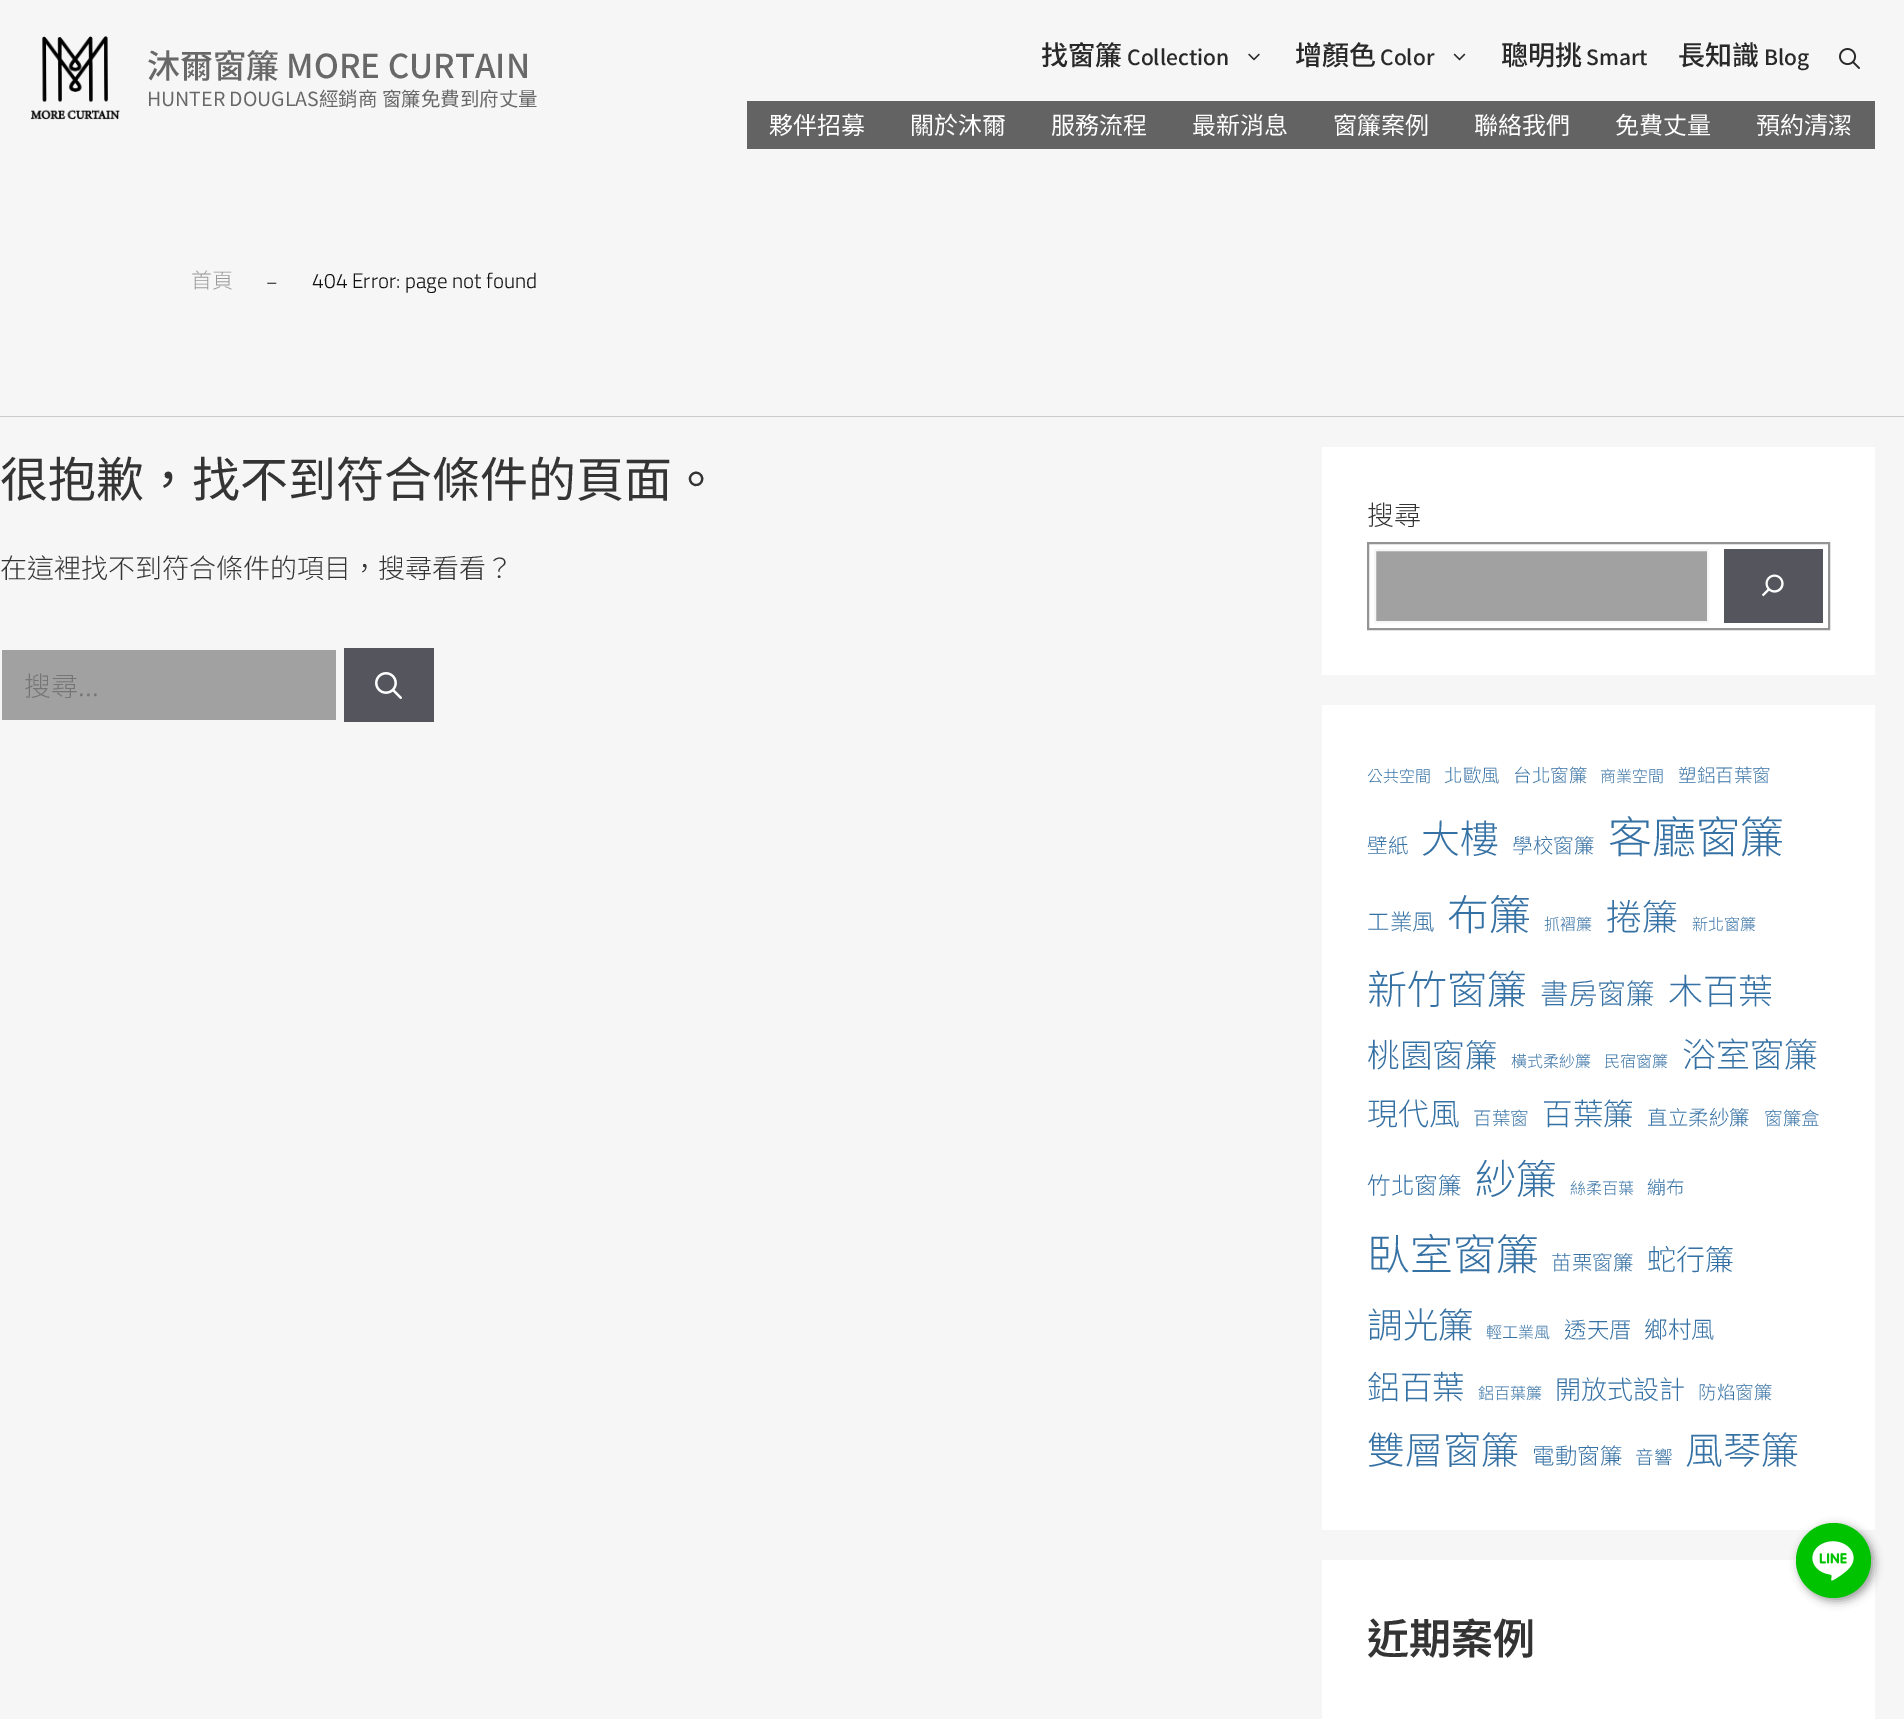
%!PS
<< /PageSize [1904 1719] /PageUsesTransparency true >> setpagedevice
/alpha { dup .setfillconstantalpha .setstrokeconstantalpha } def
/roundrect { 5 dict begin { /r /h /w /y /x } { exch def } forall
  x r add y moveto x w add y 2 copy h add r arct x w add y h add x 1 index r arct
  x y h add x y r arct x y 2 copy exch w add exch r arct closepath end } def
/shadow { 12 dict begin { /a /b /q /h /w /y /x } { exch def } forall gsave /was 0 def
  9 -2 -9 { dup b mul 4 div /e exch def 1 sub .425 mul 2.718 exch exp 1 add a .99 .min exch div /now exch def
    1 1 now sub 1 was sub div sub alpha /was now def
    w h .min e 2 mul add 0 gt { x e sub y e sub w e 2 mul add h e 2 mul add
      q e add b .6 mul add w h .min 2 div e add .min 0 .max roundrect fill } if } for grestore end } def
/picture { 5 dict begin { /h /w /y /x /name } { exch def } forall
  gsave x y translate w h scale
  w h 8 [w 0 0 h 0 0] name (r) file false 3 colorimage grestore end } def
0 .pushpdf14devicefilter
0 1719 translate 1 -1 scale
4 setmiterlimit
0.965 setgray
0 0 1904 1719 rectfill
(img1.rgb) 30 36 90 84 picture
/NotoSansTC-Medium [33 0 0 -33 0 0] selectfont
0.408 setgray
147 78 moveto (沐爾窗簾 MORE CURTAIN) show
/NotoSansTC-Regular [19.5 0 0 -19.5 0 0] selectfont
147 106 moveto (HUNTER DOUGLAS經銷商 窗簾免費到府丈量) show
/NotoSansTC-Medium [27 0 0 -27 0 0] selectfont
0.161 setgray
1041 65 moveto (找窗簾) show
/NotoSansTC-Medium [21 0 0 -21 0 0] selectfont
1127 65 moveto (Collection) show
(img2.rgb) 1248 53 12 8 picture
/NotoSansTC-Medium [27 0 0 -27 0 0] selectfont
1295 65 moveto (增顏色) show
/NotoSansTC-Medium [21 0 0 -21 0 0] selectfont
1380 65 moveto (Color) show
(img3.rgb) 1453 53 13 8 picture
/NotoSansTC-Medium [27 0 0 -27 0 0] selectfont
1501 65 moveto (聰明挑) show
/NotoSansTC-Medium [21 0 0 -21 0 0] selectfont
1586 65 moveto (Smart) show
/NotoSansTC-Medium [27 0 0 -27 0 0] selectfont
1678 65 moveto (長知識) show
/NotoSansTC-Medium [21 0 0 -21 0 0] selectfont
1764 65 moveto (Blog) show
(img4.rgb) 1839 48 21 21 picture
0.388 setgray
747 101 1128 48 rectfill
/NotoSansTC-Regular [24 0 0 -24 0 0] selectfont
1 setgray
769 134 moveto (夥伴招募) show
910 134 moveto (關於沐爾) show
1051 134 moveto (服務流程) show
1192 134 moveto (最新消息) show
1333 134 moveto (窗簾案例) show
1474 134 moveto (聯絡我們) show
1615 134 moveto (免費丈量) show
1756 134 moveto (預約清潔) show
0.8 setgray
0 416 1904 1 rectfill
/NotoSansTC-Light [21 0 0 -21 0 0] selectfont
0.6 setgray
191 288 moveto (首頁) show
/TitilliumWeb-Light [18 0 0 -18 0 0] selectfont
0.067 setgray
266 288 moveto (–) show
/TitilliumWeb-Light [21 0 0 -21 0 0] selectfont
312 288 moveto (404 Error: page not found) show
/NotoSansTC-Regular [48 0 0 -48 0 0] selectfont
0.204 setgray
0 497 moveto (很抱歉，找不到符合條件的頁面。) show
/NotoSansTC-Light [27 0 0 -27 0 0] selectfont
0 578 moveto (在這裡找不到符合條件的項目，搜尋看看？) show
0.631 setgray
2 650 334 70 rectfill
0.459 setgray
24 696 moveto (搜尋...) show
0.333 0.333 0.369 setrgbcolor
344 648 90 74 rectfill
(img5.rgb) 375 672 27 27 picture
1 setgray
1322 447 553 228 rectfill
0.204 setgray
1367 525 moveto (搜尋) show
0.58 setgray
2 setlinewidth
1368 543 461 86 rectstroke
0.631 setgray
newpath 1375 550 moveto 1708 550 lineto 1708 622 lineto 1375 622 lineto closepath gsave fill grestore
0.965 setgray
stroke
0.333 0.333 0.369 setrgbcolor
1724 549 99 74 rectfill
(img6.rgb) 1761 574 23 23 picture
1 setgray
1322 705 553 825 rectfill
/NotoSansTC-Light [16 0 0 -16 0 0] selectfont
0.212 0.443 0.643 setrgbcolor
1367 782 moveto (公共空間) show
/NotoSansTC-Light [18.5 0 0 -18.5 0 0] selectfont
1444 782 moveto (北歐風) show
1513 782 moveto (台北窗簾) show
/NotoSansTC-Light [16 0 0 -16 0 0] selectfont
1600 782 moveto (商業空間) show
/NotoSansTC-Light [18.5 0 0 -18.5 0 0] selectfont
1678 782 moveto (塑鋁百葉窗) show
/NotoSansTC-Light [20.5 0 0 -20.5 0 0] selectfont
1367 853 moveto (壁紙) show
/NotoSansTC-Light [39 0 0 -39 0 0] selectfont
1421 853 moveto (大樓) show
/NotoSansTC-Light [20.5 0 0 -20.5 0 0] selectfont
1512 853 moveto (學校窗簾) show
/NotoSansTC-Light [44 0 0 -44 0 0] selectfont
1608 853 moveto (客廳窗簾) show
/NotoSansTC-Light [22.5 0 0 -22.5 0 0] selectfont
1367 930 moveto (工業風) show
/NotoSansTC-Light [42 0 0 -42 0 0] selectfont
1447 930 moveto (布簾) show
/NotoSansTC-Light [16 0 0 -16 0 0] selectfont
1544 930 moveto (抓褶簾) show
/NotoSansTC-Light [36 0 0 -36 0 0] selectfont
1606 930 moveto (捲簾) show
/NotoSansTC-Light [16 0 0 -16 0 0] selectfont
1692 930 moveto (新北窗簾) show
/NotoSansTC-Light [40 0 0 -40 0 0] selectfont
1367 1004 moveto (新竹窗簾) show
/NotoSansTC-Light [28.5 0 0 -28.5 0 0] selectfont
1540 1004 moveto (書房窗簾) show
/NotoSansTC-Light [35 0 0 -35 0 0] selectfont
1668 1004 moveto (木百葉) show
/NotoSansTC-Light [32.5 0 0 -32.5 0 0] selectfont
1367 1067 moveto (桃園窗簾) show
/NotoSansTC-Light [16 0 0 -16 0 0] selectfont
1511 1067 moveto (橫式柔紗簾) show
1604 1067 moveto (民宿窗簾) show
/NotoSansTC-Light [34 0 0 -34 0 0] selectfont
1682 1067 moveto (浴室窗簾) show
/NotoSansTC-Light [31 0 0 -31 0 0] selectfont
1367 1125 moveto (現代風) show
/NotoSansTC-Light [18.5 0 0 -18.5 0 0] selectfont
1473 1125 moveto (百葉窗) show
/NotoSansTC-Light [30.5 0 0 -30.5 0 0] selectfont
1542 1125 moveto (百葉簾) show
/NotoSansTC-Light [20.5 0 0 -20.5 0 0] selectfont
1647 1125 moveto (直立柔紗簾) show
/NotoSansTC-Light [18.5 0 0 -18.5 0 0] selectfont
1764 1125 moveto (窗簾盒) show
/NotoSansTC-Light [23.5 0 0 -23.5 0 0] selectfont
1367 1194 moveto (竹北窗簾) show
/NotoSansTC-Light [41 0 0 -41 0 0] selectfont
1475 1194 moveto (紗簾) show
/NotoSansTC-Light [16 0 0 -16 0 0] selectfont
1570 1194 moveto (絲柔百葉) show
/NotoSansTC-Light [18.5 0 0 -18.5 0 0] selectfont
1647 1194 moveto (繃布) show
/NotoSansTC-Light [43 0 0 -43 0 0] selectfont
1367 1270 moveto (臥室窗簾) show
/NotoSansTC-Light [20.5 0 0 -20.5 0 0] selectfont
1551 1270 moveto (苗栗窗簾) show
/NotoSansTC-Light [29 0 0 -29 0 0] selectfont
1647 1270 moveto (蛇行簾) show
/NotoSansTC-Light [35.5 0 0 -35.5 0 0] selectfont
1367 1338 moveto (調光簾) show
/NotoSansTC-Light [16 0 0 -16 0 0] selectfont
1486 1338 moveto (輕工業風) show
/NotoSansTC-Light [22.5 0 0 -22.5 0 0] selectfont
1564 1338 moveto (透天厝) show
/NotoSansTC-Light [23.5 0 0 -23.5 0 0] selectfont
1644 1338 moveto (鄉村風) show
/NotoSansTC-Light [32.5 0 0 -32.5 0 0] selectfont
1367 1399 moveto (鋁百葉) show
/NotoSansTC-Light [16 0 0 -16 0 0] selectfont
1478 1399 moveto (鋁百葉簾) show
/NotoSansTC-Light [26 0 0 -26 0 0] selectfont
1555 1399 moveto (開放式設計) show
/NotoSansTC-Light [18.5 0 0 -18.5 0 0] selectfont
1698 1399 moveto (防焰窗簾) show
/NotoSansTC-Light [38 0 0 -38 0 0] selectfont
1367 1464 moveto (雙層窗簾) show
/NotoSansTC-Light [22.5 0 0 -22.5 0 0] selectfont
1532 1464 moveto (電動窗簾) show
/NotoSansTC-Light [18.5 0 0 -18.5 0 0] selectfont
1635 1464 moveto (音響) show
/NotoSansTC-Light [38 0 0 -38 0 0] selectfont
1685 1464 moveto (風琴簾) show
1 setgray
1322 1560 553 159 rectfill
/NotoSansTC-SemiBold [42 0 0 -42 0 0] selectfont
0.204 setgray
1367 1654 moveto (近期案例) show
0 setgray
1799 1526 75 75 37.5 4.5 0.4 shadow
0 0.765 0 setrgbcolor
newpath 1833.5 1560.5 37.5 0 360 arc closepath fill
(img7.rgb) 1812 1541 42 40 picture
.poppdf14devicefilter showpage
